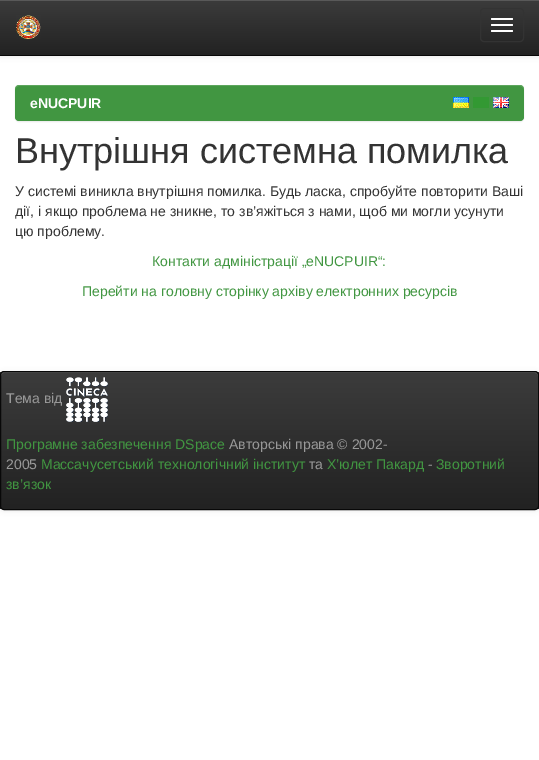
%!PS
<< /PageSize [539 760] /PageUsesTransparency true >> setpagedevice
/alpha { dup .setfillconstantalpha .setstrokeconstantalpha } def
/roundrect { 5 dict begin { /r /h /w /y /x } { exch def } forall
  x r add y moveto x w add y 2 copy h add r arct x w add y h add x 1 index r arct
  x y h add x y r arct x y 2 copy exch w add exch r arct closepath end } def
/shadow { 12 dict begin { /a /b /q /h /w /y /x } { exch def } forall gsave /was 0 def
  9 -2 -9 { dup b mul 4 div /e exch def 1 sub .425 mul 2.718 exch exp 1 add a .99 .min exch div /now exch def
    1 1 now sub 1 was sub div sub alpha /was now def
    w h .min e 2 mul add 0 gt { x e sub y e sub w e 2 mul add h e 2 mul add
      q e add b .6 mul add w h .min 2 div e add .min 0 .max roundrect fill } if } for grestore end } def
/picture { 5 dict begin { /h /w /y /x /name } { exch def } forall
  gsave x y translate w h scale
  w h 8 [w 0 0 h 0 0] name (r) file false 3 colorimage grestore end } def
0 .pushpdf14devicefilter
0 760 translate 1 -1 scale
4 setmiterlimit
1 setgray
0 0 539 760 rectfill
0 setgray
0 1 539 56 0 2.5 0.07 shadow
gsave newpath 0 1 moveto 539 1 lineto 539 55 lineto 0 55 lineto closepath clip newpath
<< /ShadingType 2 /ColorSpace /DeviceRGB /Coords [270 0 270 55] /Extend [true true] /Function << /FunctionType 2 /Domain [0 1] /C0 [0.235 0.235 0.235] /C1 [0.133 0.133 0.133] /N 1 >> >> shfill grestore
0.349 setgray
0 0 539 1 rectfill
0.031 setgray
0 55 539 1 rectfill
(img1.rgb) 16 15 25 24 picture
0.2 setgray
480.5 8.5 43 33 3.5 roundrect stroke
1 setgray
491 18 22 2 1 roundrect fill
491 24 22 2 1 roundrect fill
491 30 22 2 1 roundrect fill
0 setgray
15 86 509 36 4 0.5 0.07 shadow
0.255 0.588 0.255 setrgbcolor
15 85 509 36 4 roundrect fill
0.15 alpha
1 setgray
newpath 19 86 moveto 520 86 lineto 522 86 524 88 524 90 curveto 524 89 lineto 524 87 522 85 520 85 curveto 19 85 lineto 17 85 15 87 15 89 curveto 15 90 lineto 15 88 17 86 19 86 curveto closepath fill
/LiberationSans-Bold [14 0 0 -14 0 0] selectfont
1 alpha
30 108 moveto (eNUCPUIR) show
(img2.rgb) 453 97 16 11 picture
0.2 0.6 0.2 setrgbcolor
473 97 16 11 rectfill
(img3.rgb) 493 97 16 11 picture
/LiberationSans-Regular [36 0 0 -36 0 0] selectfont
0.2 setgray
15 163 moveto (Внутрішня системна помилка) show
/LiberationSans-Regular [14 0 0 -14 0 0] selectfont
15 196 moveto (У системі виникла внутрішня помилка. Будь ласка, спробуйте повторити Ваші) show
15 216 moveto (дії, і якщо проблема не зникне, то зв’яжіться з нами, щоб ми могли усунути) show
15 236 moveto (цю проблему.) show
0.255 0.588 0.255 setrgbcolor
152 266 moveto (Контакти адміністрації „eNUCPUIR“:) show
82 296 moveto (Перейти на головну сторінку архіву електронних ресурсів) show
0 setgray
0 372 539 139 4 2.5 0.07 shadow
gsave
0 371 539 139 4 roundrect clip newpath
gsave newpath 0 372 moveto 539 372 lineto 539 509 lineto 0 509 lineto closepath clip newpath
<< /ShadingType 2 /ColorSpace /DeviceRGB /Coords [270 372 270 509] /Extend [true true] /Function << /FunctionType 2 /Domain [0 1] /C0 [0.235 0.235 0.235] /C1 [0.133 0.133 0.133] /N 1 >> >> shfill grestore
grestore
0.349 setgray
newpath 4 373 moveto 535 373 lineto 537 373 538 374 538 376 curveto 538 375 lineto 538 373 537 372 535 372 curveto 4 372 lineto 2 372 1 373 1 375 curveto 1 376 lineto 1 374 2 373 4 373 curveto closepath fill
0.031 setgray
0.5 371.5 538 138 3.5 roundrect stroke
0.6 setgray
6 403 moveto (Тема від) show
(img4.rgb) 66 377 42 45 picture
0.255 0.588 0.255 setrgbcolor
6 449 moveto (Програмне забезпечення DSpace) show
0.6 setgray
229 449 moveto (Авторські права © 2002-) show
6 469 moveto (2005) show
0.255 0.588 0.255 setrgbcolor
41 469 moveto (Массачусетський технологічний інститут) show
0.6 setgray
309 469 moveto (та) show
0.255 0.588 0.255 setrgbcolor
327 469 moveto (Х’юлет Пакард) show
0.6 setgray
428 469 moveto (-) show
0.255 0.588 0.255 setrgbcolor
436 469 moveto (Зворотний) show
6 489 moveto (зв’язок) show
.poppdf14devicefilter showpage
